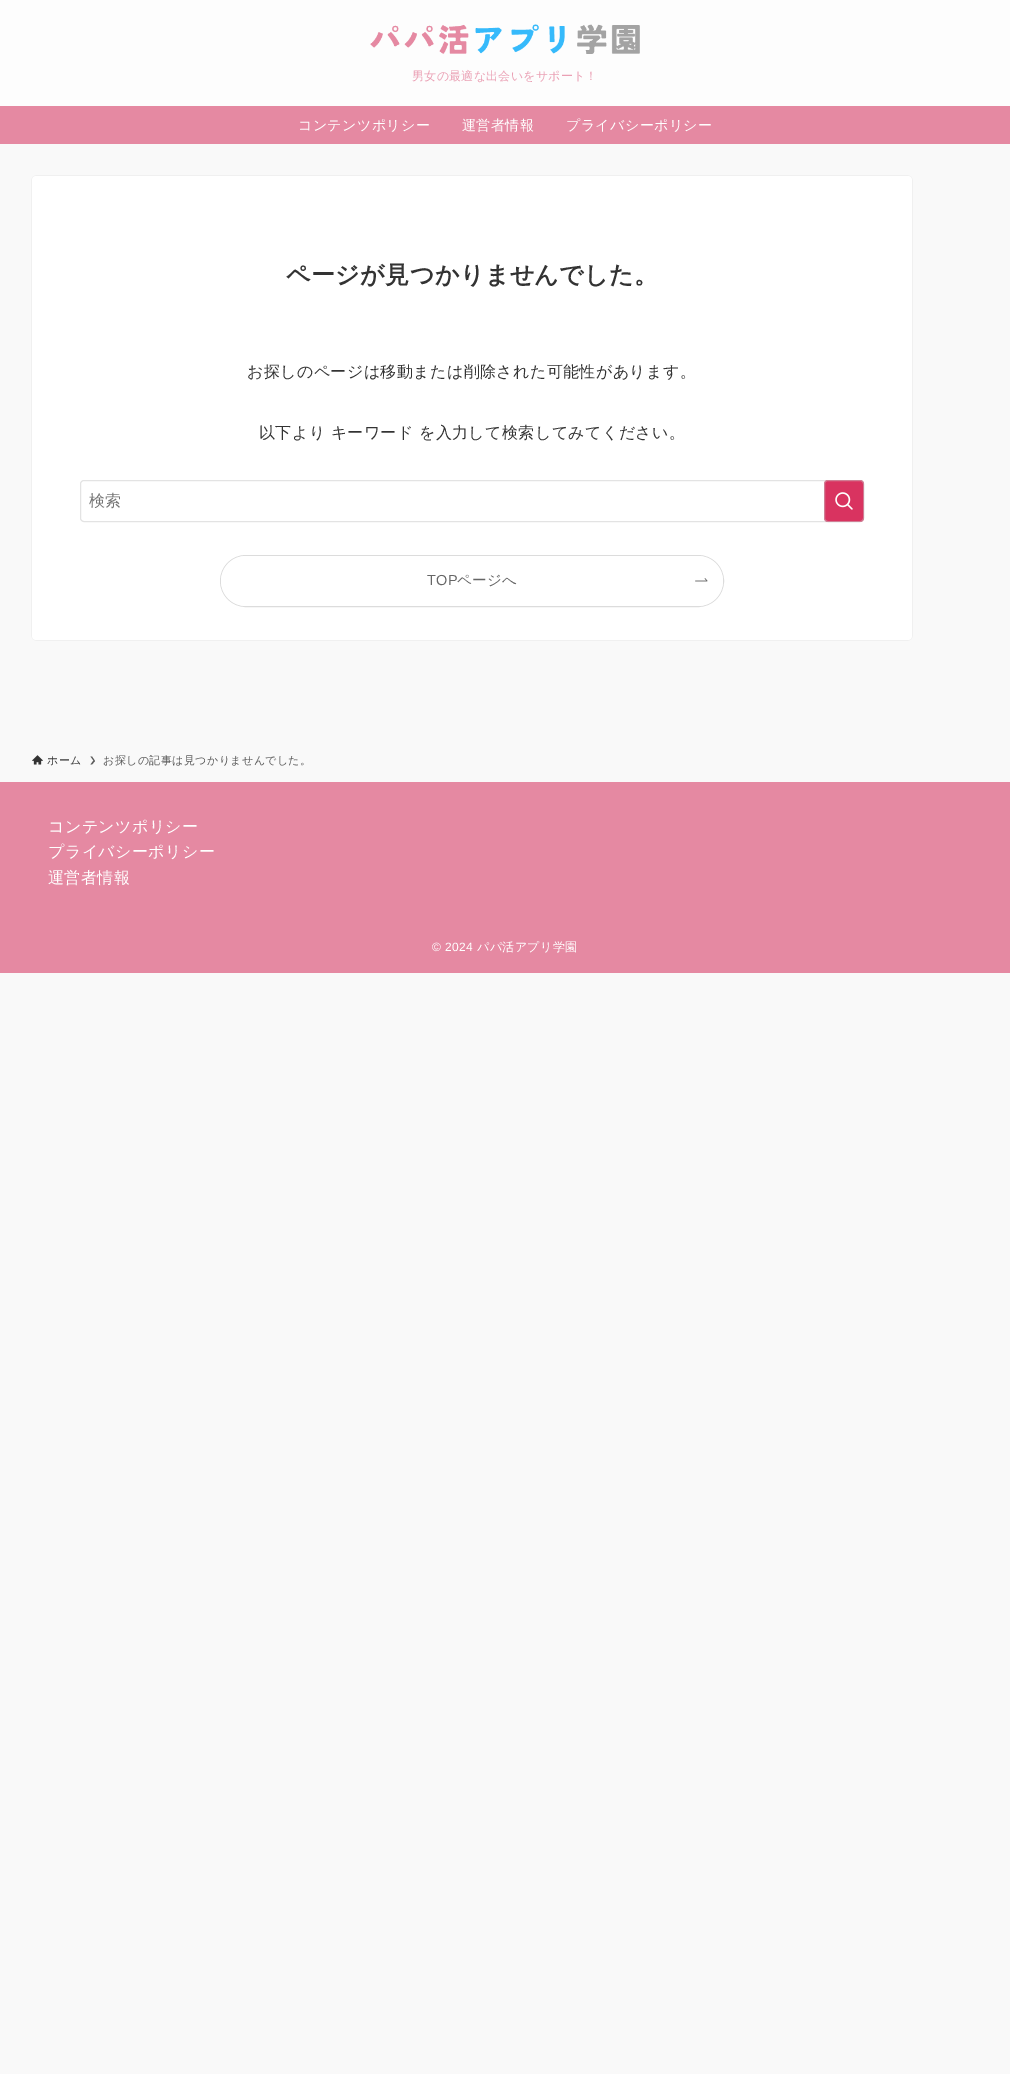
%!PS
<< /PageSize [1010 2074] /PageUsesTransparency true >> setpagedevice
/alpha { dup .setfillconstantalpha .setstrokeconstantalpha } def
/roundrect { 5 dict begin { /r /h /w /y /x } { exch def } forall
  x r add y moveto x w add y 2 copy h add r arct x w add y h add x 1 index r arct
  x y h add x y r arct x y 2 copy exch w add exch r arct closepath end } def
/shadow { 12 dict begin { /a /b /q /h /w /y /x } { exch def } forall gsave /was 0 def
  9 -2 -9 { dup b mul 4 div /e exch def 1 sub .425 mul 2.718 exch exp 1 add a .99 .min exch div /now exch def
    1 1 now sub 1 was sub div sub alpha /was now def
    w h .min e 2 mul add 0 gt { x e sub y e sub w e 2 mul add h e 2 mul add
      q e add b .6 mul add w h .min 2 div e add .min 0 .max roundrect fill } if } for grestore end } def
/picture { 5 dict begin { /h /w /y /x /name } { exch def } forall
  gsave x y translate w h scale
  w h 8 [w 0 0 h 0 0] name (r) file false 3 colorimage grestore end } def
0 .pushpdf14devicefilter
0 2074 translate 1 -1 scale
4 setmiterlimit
0.976 setgray
0 0 1010 2074 rectfill
0.992 setgray
0 0 1010 106 rectfill
(img1.rgb) 370 24 270 30 picture
/WenQuanYiZenHei-Medium [12 0 0 -12 0 0] selectfont
0.918 0.627 0.706 setrgbcolor
412 80 moveto 0.25 0 (男女の最適な出会いをサポート！) ashow
0.898 0.537 0.635 setrgbcolor
0 106 1010 38 rectfill
/WenQuanYiZenHei-Medium [14 0 0 -14 0 0] selectfont
1 setgray
298 130 moveto 0.4 0 (コンテンツポリシー) ashow
462 130 moveto 0.4 0 (運営者情報) ashow
566 130 moveto 0.4 0 (プライバシーポリシー) ashow
0 setgray
32 176 880 464 4 0.5 0.12 shadow
1 setgray
32 176 880 464 4 roundrect fill
/WenQuanYiZenHei-Bold [24 0 0 -24 0 0] selectfont
0.2 setgray
286 283 moveto 0.4 0 (ページが見つかりませんでした。) ashow
/WenQuanYiZenHei-Medium [16 0 0 -16 0 0] selectfont
247 377 moveto 0.4 0 (お探しのページは移動または削除された可能性があります。) ashow
259 438 moveto 0.4 0 (以下より キーワード を入力して検索してみてください。) ashow
0.89 setgray
80.5 480.5 783 41 3.5 roundrect stroke
0.459 setgray
89 506 moveto (検索) show
0.851 0.2 0.376 setrgbcolor
824 480 40 42 4 roundrect fill
0.5 alpha
0.78 setgray
824.5 480.5 39 41 3.5 roundrect stroke
1 alpha
(img2.rgb) 835 492 18 18 picture
0.863 setgray
220.5 555.5 503 51 25.5 roundrect stroke
1 setgray
221 556 502 50 25 roundrect fill
/LiberationSans-Regular [14.5 0 0 -14.5 0 0] selectfont
0.4 setgray
427 585 moveto 0.4 0 (TOP) ashow
/WenQuanYiZenHei-Medium [14.5 0 0 -14.5 0 0] selectfont
457 585 moveto 0.4 0 (ページへ) ashow
(img3.rgb) 695 578 13 4 picture
(img4.rgb) 32 755 11 10 picture
/WenQuanYiZenHei-Medium [11 0 0 -11 0 0] selectfont
0.2 setgray
47 764 moveto 0.4 0 (ホーム) ashow
0.357 setgray
newpath 92 756.5 moveto 90.5 756.5 lineto 93.5 760.5 lineto 90.5 764.5 lineto 92 764.5 lineto 95 761 lineto closepath fill
103 764 moveto 0.4 0 (お探しの記事は見つかりませんでした。) ashow
0.898 0.537 0.635 setrgbcolor
0 782 1010 191 rectfill
/WenQuanYiZenHei-Medium [16 0 0 -16 0 0] selectfont
1 setgray
48 832 moveto 0.4 0 (コンテンツポリシー) ashow
48 857 moveto 0.4 0 (プライバシーポリシー) ashow
48 883 moveto 0.4 0 (運営者情報) ashow
/LiberationSans-Regular [12 0 0 -12 0 0] selectfont
432 951 moveto 0.4 0 (© 2024) ashow
/WenQuanYiZenHei-Medium [12 0 0 -12 0 0] selectfont
477 951 moveto 0.4 0 (パパ活アプリ学園) ashow
.poppdf14devicefilter showpage
